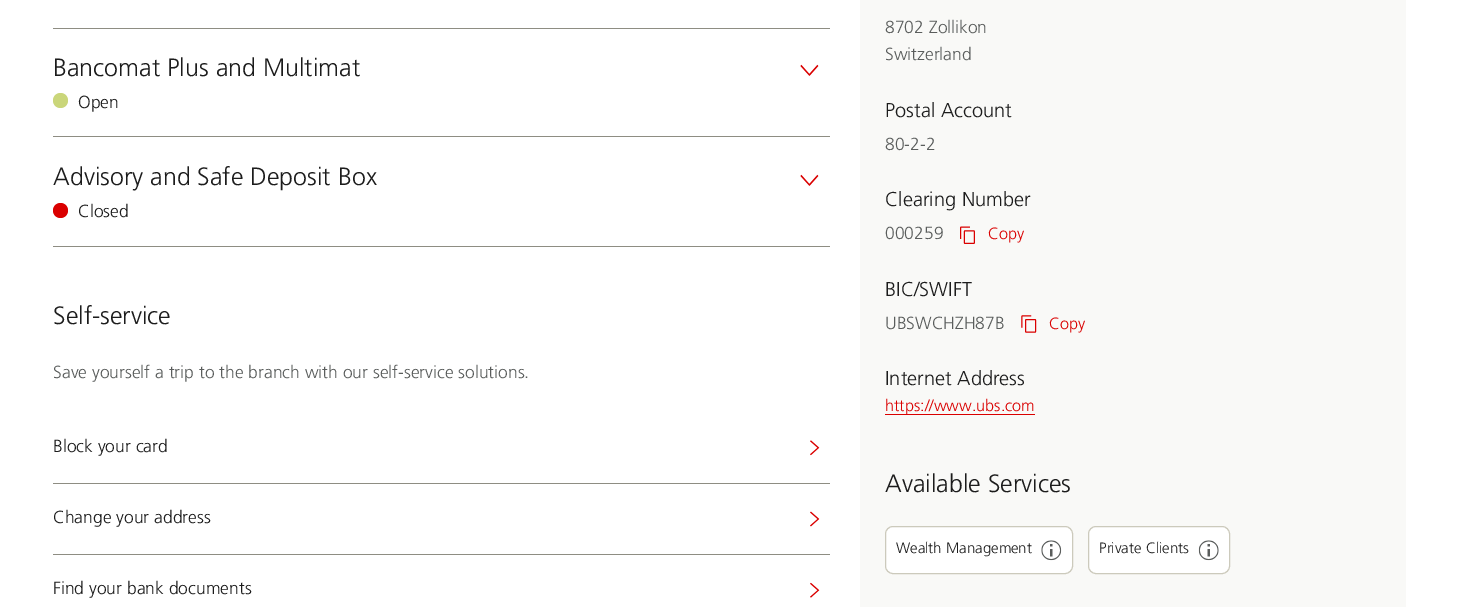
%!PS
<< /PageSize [1458 607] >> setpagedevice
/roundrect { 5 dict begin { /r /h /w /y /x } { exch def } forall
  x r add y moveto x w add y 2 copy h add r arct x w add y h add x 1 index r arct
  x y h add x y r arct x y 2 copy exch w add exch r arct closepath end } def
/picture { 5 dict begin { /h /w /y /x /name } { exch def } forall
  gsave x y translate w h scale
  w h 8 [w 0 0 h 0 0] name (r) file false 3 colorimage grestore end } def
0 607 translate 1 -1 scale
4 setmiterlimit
1 setgray
0 0 1458 607 rectfill
0.557 0.553 0.514 setrgbcolor
53 28 777 1 rectfill
53 136 777 1 rectfill
/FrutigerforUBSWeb-Light [25 0 0 -25 0 0] selectfont
0.11 setgray
53 76 moveto (Bancomat Plus and Multimat) show
(img1.rgb) 800 64 19 12 picture
0.792 0.839 0.478 setrgbcolor
newpath 60.5 100.5 7.5 0 360 arc closepath fill
/FrutigerforUBSWeb-Light [17.5 0 0 -17.5 0 0] selectfont
0.11 setgray
78 108 moveto (Open) show
0.557 0.553 0.514 setrgbcolor
53 246 777 1 rectfill
/FrutigerforUBSWeb-Light [25 0 0 -25 0 0] selectfont
0.11 setgray
53 185 moveto (Advisory and Safe Deposit Box) show
(img2.rgb) 800 174 19 12 picture
0.855 0 0 setrgbcolor
newpath 60.5 210.5 7.5 0 360 arc closepath fill
/FrutigerforUBSWeb-Light [17.5 0 0 -17.5 0 0] selectfont
0.11 setgray
78 217 moveto (Closed) show
/FrutigerforUBSWeb-Light [25 0 0 -25 0 0] selectfont
53 324 moveto (Self-service) show
/FrutigerforUBSWeb-Light [17.5 0 0 -17.5 0 0] selectfont
0.353 0.365 0.361 setrgbcolor
53 378 moveto (Save yourself a trip to the branch with our self-service solutions.) show
0.557 0.553 0.514 setrgbcolor
53 483 777 1 rectfill
0.11 setgray
53 452 moveto (Block your card) show
(img3.rgb) 810 440 10 16 picture
0.557 0.553 0.514 setrgbcolor
53 554 777 1 rectfill
0.11 setgray
53 523 moveto (Change your address) show
(img4.rgb) 810 511 10 16 picture
53 594 moveto (Find your bank documents) show
(img5.rgb) 810 582 10 16 picture
0.976 0.976 0.969 setrgbcolor
860 0 546 607 rectfill
0.353 0.365 0.361 setrgbcolor
885 33 moveto (8702 Zollikon) show
885 60 moveto (Switzerland) show
/FrutigerforUBSWeb-Light [20 0 0 -20 0 0] selectfont
0.11 setgray
885 117 moveto (Postal Account) show
/FrutigerforUBSWeb-Light [17.5 0 0 -17.5 0 0] selectfont
0.353 0.365 0.361 setrgbcolor
885 150 moveto (80-2-2) show
/FrutigerforUBSWeb-Light [20 0 0 -20 0 0] selectfont
0.11 setgray
885 206 moveto (Clearing Number) show
/FrutigerforUBSWeb-Light [17.5 0 0 -17.5 0 0] selectfont
0.353 0.365 0.361 setrgbcolor
885 239 moveto (000259) show
(img6.rgb) 960 226 15 18 picture
/FrutigerforUBSWeb-Light [16.25 0 0 -16.25 0 0] selectfont
0.855 0 0 setrgbcolor
988 239 moveto (Copy) show
/FrutigerforUBSWeb-Light [20 0 0 -20 0 0] selectfont
0.11 setgray
885 296 moveto (BIC/SWIFT) show
/FrutigerforUBSWeb-Light [17.5 0 0 -17.5 0 0] selectfont
0.353 0.365 0.361 setrgbcolor
885 329 moveto (UBSWCHZH87B) show
(img7.rgb) 1021 315 16 18 picture
/FrutigerforUBSWeb-Light [16.25 0 0 -16.25 0 0] selectfont
0.855 0 0 setrgbcolor
1049 329 moveto (Copy) show
/FrutigerforUBSWeb-Light [20 0 0 -20 0 0] selectfont
0.11 setgray
885 385 moveto (Internet Address) show
0.855 0 0 setrgbcolor
885 414 150 1 rectfill
/FrutigerforUBSWeb-Light [16.25 0 0 -16.25 0 0] selectfont
885 411 moveto (https://www.ubs.com) show
/FrutigerforUBSWeb-Light [25 0 0 -25 0 0] selectfont
0.11 setgray
885 492 moveto (Available Services) show
1 setgray
885.5 526.5 187 47 7.5 roundrect gsave fill grestore
0.8 0.792 0.737 setrgbcolor
stroke
/FrutigerforUBSWeb-Light [15 0 0 -15 0 0] selectfont
0.11 setgray
896 553 moveto (Wealth Management) show
(img8.rgb) 1041 540 21 21 picture
1 setgray
1088.5 526.5 141 47 7.5 roundrect gsave fill grestore
0.8 0.792 0.737 setrgbcolor
stroke
0.11 setgray
1099 553 moveto (Private Clients) show
(img9.rgb) 1198 540 21 21 picture
showpage
